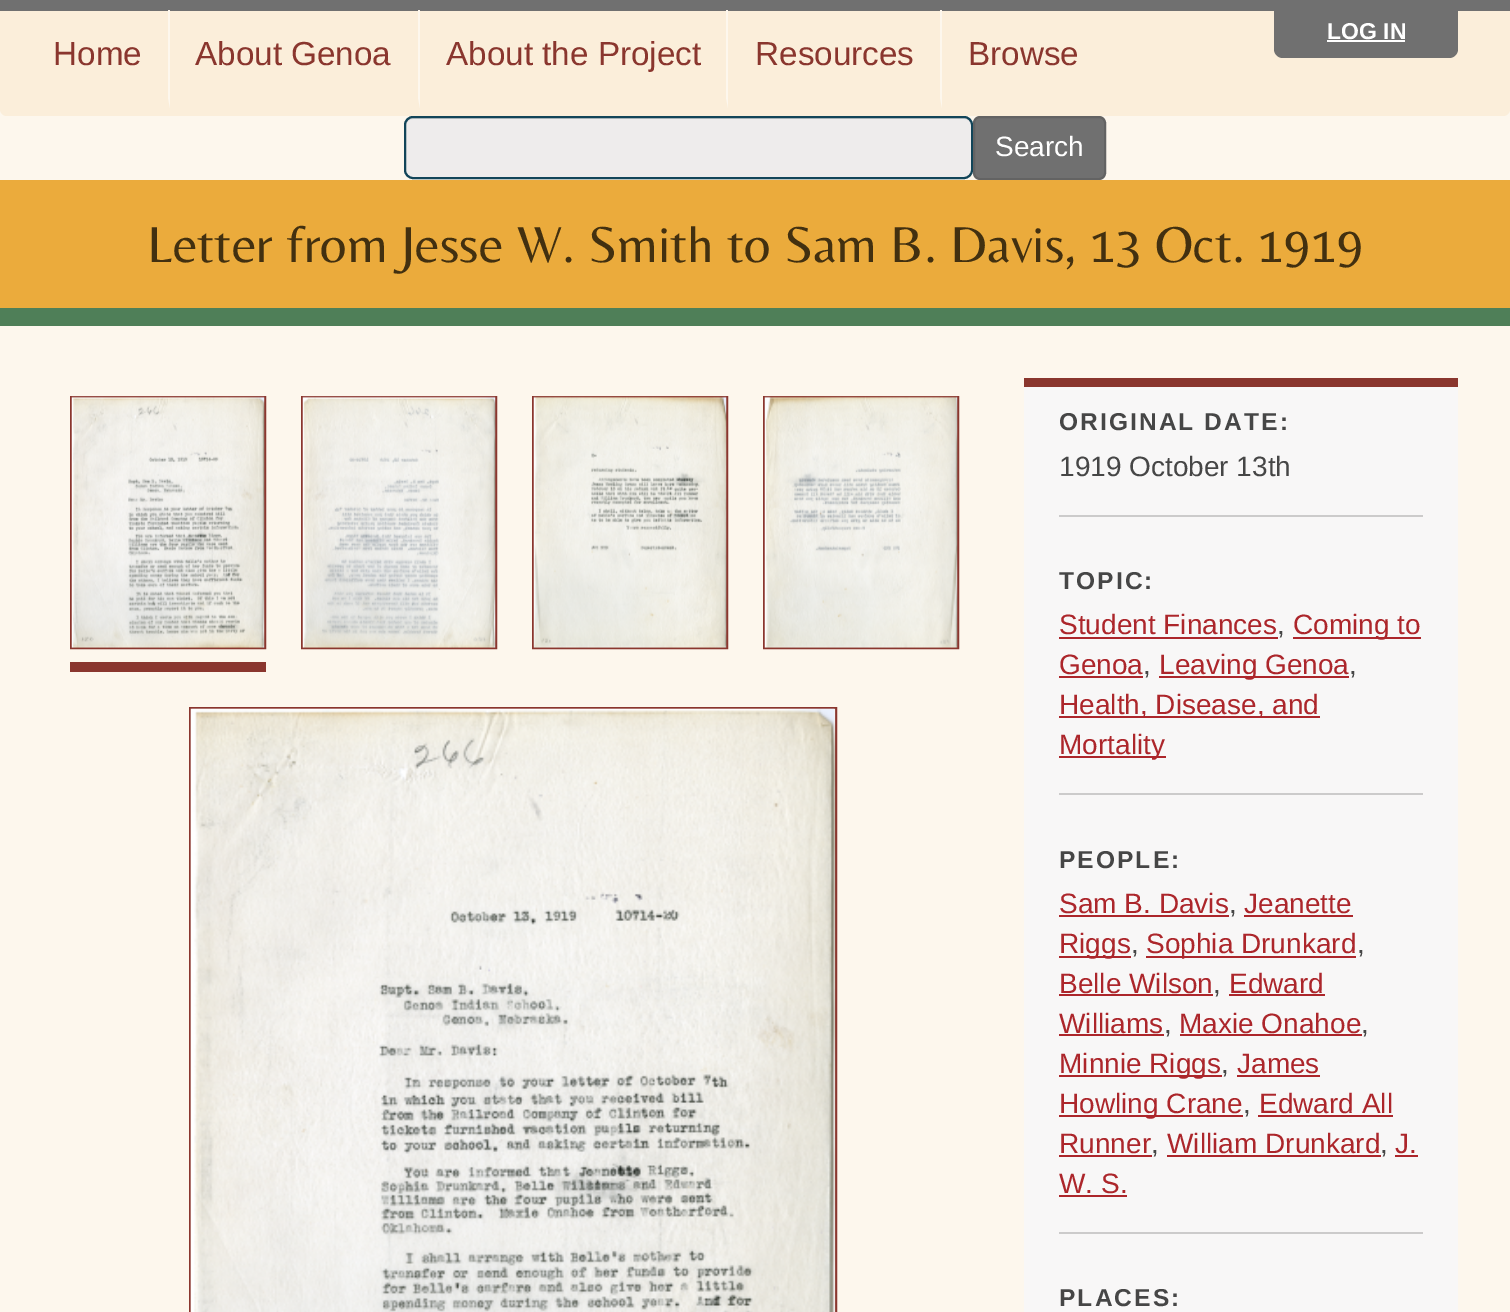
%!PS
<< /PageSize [1510 1312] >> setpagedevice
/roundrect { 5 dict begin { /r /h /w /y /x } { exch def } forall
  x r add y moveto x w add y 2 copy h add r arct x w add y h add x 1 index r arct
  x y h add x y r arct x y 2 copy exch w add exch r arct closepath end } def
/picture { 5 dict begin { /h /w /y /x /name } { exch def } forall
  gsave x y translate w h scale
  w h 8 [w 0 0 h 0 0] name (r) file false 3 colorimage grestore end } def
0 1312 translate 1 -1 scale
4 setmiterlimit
0.992 0.969 0.929 setrgbcolor
0 0 1510 1312 rectfill
0.984 0.933 0.855 setrgbcolor
0 0 1510 116 7 roundrect fill
0.439 setgray
0 0 1510 11 rectfill
newpath 1274 11 moveto 1458 11 lineto 1458 49 lineto 1458 54 1454 58 1449 58 curveto 1283 58 lineto 1278 58 1274 54 1274 49 curveto closepath fill
/LiberationSans-Bold [23 0 0 -23 0 0] selectfont
1 setgray
1327 39 moveto (LOG IN) show
1327 40 78 2 rectfill
0.992 0.969 0.929 setrgbcolor
newpath 170 10 moveto 170 108 lineto 168 98 lineto 168 10 lineto closepath fill
/LiberationSans-Regular [33.25 0 0 -33.25 0 0] selectfont
0.541 0.212 0.18 setrgbcolor
53 65 moveto (Home) show
0.992 0.969 0.929 setrgbcolor
newpath 420 10 moveto 420 108 lineto 418 98 lineto 418 10 lineto closepath fill
0.541 0.212 0.18 setrgbcolor
195 65 moveto (About Genoa) show
0.992 0.969 0.929 setrgbcolor
newpath 728 10 moveto 728 108 lineto 726 98 lineto 726 10 lineto closepath fill
0.541 0.212 0.18 setrgbcolor
446 65 moveto (About the Project) show
0.992 0.969 0.929 setrgbcolor
newpath 942 10 moveto 942 108 lineto 940 98 lineto 940 10 lineto closepath fill
0.541 0.212 0.18 setrgbcolor
755 65 moveto (Resources) show
968 65 moveto (Browse) show
0.933 0.925 0.925 setrgbcolor
404 116 569 63 9 roundrect fill
0.863 0.855 0.855 setrgbcolor
newpath 413 119 moveto 964 119 lineto 968 119 971 122 971 126 curveto 971 124 lineto 971 120 968 117 964 117 curveto 413 117 lineto 409 117 406 120 406 124 curveto 406 126 lineto 406 122 409 119 413 119 curveto closepath fill
0.071 0.271 0.349 setrgbcolor
2 setlinewidth
405 117 567 61 8 roundrect stroke
0.439 setgray
974 117 131 62 6 roundrect gsave fill grestore
0.388 setgray
stroke
/LiberationSans-Regular [28 0 0 -28 0 0] selectfont
1 setgray
995 156 moveto (Search) show
0.922 0.671 0.235 setrgbcolor
0 180 1510 128 rectfill
0.31 0.498 0.345 setrgbcolor
0 308 1510 18 rectfill
/Belleza-Regular [52.5 0 0 -52.5 0 0] selectfont
0.259 0.188 0.063 setrgbcolor
147 262 moveto (Letter from Jesse W. Smith to Sam B. Davis, 13 Oct. 1919) show
0.541 0.212 0.18 setrgbcolor
70 662 196 10 rectfill
71 397 194 251 rectstroke
(img1.rgb) 71 396 194 252 picture
302 397 194 251 rectstroke
(img2.rgb) 302 396 194 252 picture
533 397 194 251 rectstroke
(img3.rgb) 533 396 194 252 picture
764 397 194 251 rectstroke
(img4.rgb) 764 396 194 252 picture
190 708 646 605 rectstroke
(img5.rgb) 190 708 646 604 picture
0.973 0.969 0.969 setrgbcolor
1024 387 434 925 rectfill
0.541 0.212 0.18 setrgbcolor
1024 378 434 9 rectfill
/LiberationSans-Bold [24.5 0 0 -24.5 0 0] selectfont
0.275 setgray
1059 430 moveto 2.1 0 (ORIGINAL DATE:) ashow
/LiberationSans-Regular [28 0 0 -28 0 0] selectfont
1059 476 moveto (1919 October 13th) show
0.8 0.796 0.796 setrgbcolor
1059 515 364 2 rectfill
/LiberationSans-Bold [24.5 0 0 -24.5 0 0] selectfont
0.275 setgray
1059 589 moveto 2.1 0 (TOPIC:) ashow
/LiberationSans-Regular [28 0 0 -28 0 0] selectfont
0.675 0.149 0.169 setrgbcolor
1059 634 moveto (Student Finances) show
1059 637 219 2 rectfill
0.275 setgray
1277 634 moveto (,) show
0.675 0.149 0.169 setrgbcolor
1293 637 128 2 rectfill
1293 634 moveto (Coming to) show
1059 674 moveto (Genoa) show
1059 676 84 2 rectfill
0.275 setgray
1143 674 moveto (,) show
0.675 0.149 0.169 setrgbcolor
1159 676 190 2 rectfill
1159 674 moveto (Leaving Genoa) show
0.275 setgray
1349 674 moveto (,) show
0.675 0.149 0.169 setrgbcolor
1059 716 261 2 rectfill
1059 714 moveto (Health, Disease, and) show
1059 756 107 2 rectfill
1059 754 moveto (Mortality) show
0.8 0.796 0.796 setrgbcolor
1059 793 364 2 rectfill
/LiberationSans-Bold [24.5 0 0 -24.5 0 0] selectfont
0.275 setgray
1059 868 moveto 2.1 0 (PEOPLE:) ashow
/LiberationSans-Regular [28 0 0 -28 0 0] selectfont
0.675 0.149 0.169 setrgbcolor
1059 913 moveto (Sam B. Davis) show
1059 915 170 2 rectfill
0.275 setgray
1229 913 moveto (,) show
0.675 0.149 0.169 setrgbcolor
1244 913 moveto (Jeanette) show
1244 915 109 2 rectfill
1059 956 72 2 rectfill
1059 953 moveto (Riggs) show
0.275 setgray
1131 953 moveto (,) show
0.675 0.149 0.169 setrgbcolor
1146 956 210 2 rectfill
1146 953 moveto (Sophia Drunkard) show
0.275 setgray
1357 953 moveto (,) show
0.675 0.149 0.169 setrgbcolor
1059 993 moveto (Belle Wilson) show
1059 994 154 2 rectfill
0.275 setgray
1213 993 moveto (,) show
0.675 0.149 0.169 setrgbcolor
1229 993 moveto (Edward) show
1229 994 96 2 rectfill
1059 1033 moveto (Williams) show
1059 1034 105 2 rectfill
0.275 setgray
1164 1033 moveto (,) show
0.675 0.149 0.169 setrgbcolor
1179 1033 moveto (Maxie Onahoe) show
1180 1034 182 2 rectfill
0.275 setgray
1361 1033 moveto (,) show
0.675 0.149 0.169 setrgbcolor
1059 1075 163 2 rectfill
1059 1073 moveto (Minnie Riggs) show
0.275 setgray
1221 1073 moveto (,) show
0.675 0.149 0.169 setrgbcolor
1237 1073 moveto (James) show
1237 1075 83 2 rectfill
1059 1115 184 2 rectfill
1059 1113 moveto (Howling Crane) show
0.275 setgray
1243 1113 moveto (,) show
0.675 0.149 0.169 setrgbcolor
1259 1113 moveto (Edward All) show
1258 1115 135 2 rectfill
1059 1153 moveto (Runner) show
1059 1155 93 2 rectfill
0.275 setgray
1151 1153 moveto (,) show
0.675 0.149 0.169 setrgbcolor
1167 1153 moveto (William Drunkard) show
1167 1155 214 2 rectfill
0.275 setgray
1380 1153 moveto (,) show
0.675 0.149 0.169 setrgbcolor
1395 1153 moveto (J.) show
1395 1155 23 2 rectfill
1059 1193 moveto (W. S.) show
1059 1195 68 2 rectfill
0.8 0.796 0.796 setrgbcolor
1059 1232 364 2 rectfill
/LiberationSans-Bold [24.5 0 0 -24.5 0 0] selectfont
0.275 setgray
1059 1306 moveto 2.1 0 (PLACES:) ashow
showpage
